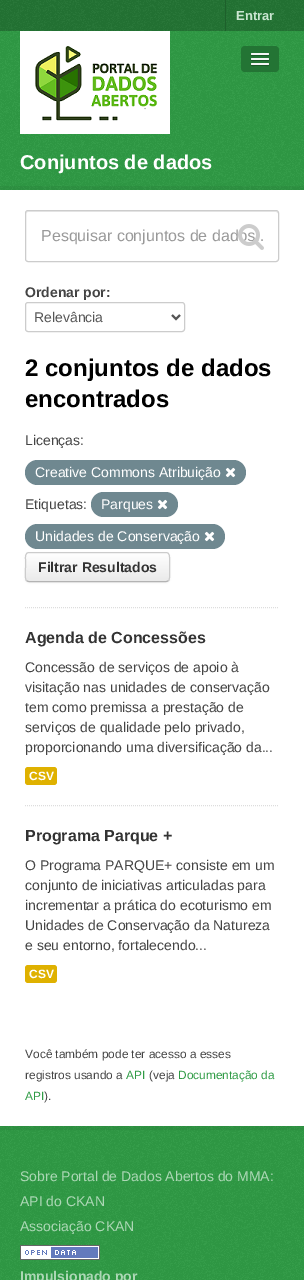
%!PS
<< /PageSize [304 1280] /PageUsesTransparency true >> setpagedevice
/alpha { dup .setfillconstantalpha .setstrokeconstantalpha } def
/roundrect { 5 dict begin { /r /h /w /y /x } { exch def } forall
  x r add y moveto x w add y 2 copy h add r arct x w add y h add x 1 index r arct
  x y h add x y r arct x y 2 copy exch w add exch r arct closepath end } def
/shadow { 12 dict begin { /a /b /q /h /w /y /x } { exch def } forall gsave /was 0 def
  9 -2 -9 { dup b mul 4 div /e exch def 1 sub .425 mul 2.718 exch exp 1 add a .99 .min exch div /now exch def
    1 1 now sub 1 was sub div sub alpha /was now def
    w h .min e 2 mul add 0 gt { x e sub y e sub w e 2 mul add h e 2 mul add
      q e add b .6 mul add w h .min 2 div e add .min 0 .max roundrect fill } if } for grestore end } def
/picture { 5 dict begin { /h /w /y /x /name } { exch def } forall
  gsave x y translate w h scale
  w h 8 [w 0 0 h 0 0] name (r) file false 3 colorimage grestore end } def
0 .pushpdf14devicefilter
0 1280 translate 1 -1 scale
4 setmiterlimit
0.184 0.608 0.271 setrgbcolor
0 0 304 1280 rectfill
(img1.rgb) 0 144 304 1136 picture
0.137 0.455 0.204 setrgbcolor
0 0 304 31 rectfill
(img2.rgb) 0 0 304 31 picture
0.114 0.376 0.169 setrgbcolor
225 0 1 31 rectfill
/LiberationSans-Bold [13 0 0 -13 0 0] selectfont
0.796 0.902 0.82 setrgbcolor
236 20 moveto (Entrar) show
(img3.rgb) 0 31 304 113 picture
(img4.rgb) 20 31 150 103 picture
0.137 0.455 0.204 setrgbcolor
241 46 38 26 4 roundrect fill
0.102 0.341 0.153 setrgbcolor
newpath 251 54.5 moveto 250 56.5 254.5 56 254.5 56 curveto 265.5 56 lineto 265.5 56 270 56.5 269 54.5 curveto 268 55.5 261.5 55 260 55 curveto 258.5 55 252 55.5 251 54.5 curveto closepath fill
0.961 setgray
251 53 18 2 1 roundrect fill
0.102 0.341 0.153 setrgbcolor
newpath 251 59.5 moveto 250 61.5 254.5 61 254.5 61 curveto 265.5 61 lineto 265.5 61 270 61.5 269 59.5 curveto 268 60.5 261.5 60 260 60 curveto 258.5 60 252 60.5 251 59.5 curveto closepath fill
0.961 setgray
251 58 18 2 1 roundrect fill
0.102 0.341 0.153 setrgbcolor
newpath 251 64.5 moveto 250 66.5 254.5 66 254.5 66 curveto 265.5 66 lineto 265.5 66 270 66.5 269 64.5 curveto 268 65.5 261.5 65 260 65 curveto 258.5 65 252 65.5 251 64.5 curveto closepath fill
0.961 setgray
251 63 18 2 1 roundrect fill
/LiberationSans-Bold [20 0 0 -20 0 0] selectfont
1 setgray
20 169 moveto (Conjuntos de dados) show
0.05 alpha
0 setgray
4 setlinewidth
-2 188 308 940 rectstroke
1 alpha
1 setgray
0 190 304 936 rectfill
0.867 setgray
1 setlinewidth
[1 1] 0 setdash
newpath 25 607.5 moveto 279 607.5 lineto stroke
0.925 setgray
newpath 28 212 moveto 276 212 lineto 277 212 278 213 278 214 curveto 278 213 278 211 276 211 curveto 28 211 lineto 26 211 26 213 26 214 curveto 26 213 27 212 28 212 curveto closepath fill
0.8 setgray
[] 0 setdash
25.5 210.5 253 51 2.5 roundrect stroke
/LiberationSans-Regular [16 0 0 -16 0 0] selectfont
0.6 setgray
41 241 moveto (Pesquisar conjuntos de dados..) show
(img5.rgb) 238 224 26 26 picture
/LiberationSans-Bold [14 0 0 -14 0 0] selectfont
0.267 setgray
25 297 moveto (Ordenar por:) show
0.8 setgray
25.5 302.5 159 29 2.5 roundrect stroke
0.333 setgray
2 setlinewidth
newpath 172 315 moveto 176 319 lineto 180 315 lineto stroke
/LiberationSans-Regular [14 0 0 -14 0 0] selectfont
34 322 moveto (Relevância) show
/LiberationSans-Bold [24 0 0 -24 0 0] selectfont
0 setgray
25 376 moveto (2 conjuntos de dados) show
25 407 moveto (encontrados) show
/LiberationSans-Regular [14 0 0 -14 0 0] selectfont
0.267 setgray
25 445 moveto (Licenças:) show
0.435 0.533 0.565 setrgbcolor
25 460 221 25 12.5 roundrect fill
1 setgray
35 477 moveto (Creative Commons Atribuição) show
(img6.rgb) 225 467 11 11 picture
0.267 setgray
25 509 moveto (Etiquetas:) show
0.435 0.533 0.565 setrgbcolor
91 492 87 25 12.5 roundrect fill
1 setgray
101 509 moveto (Parques) show
(img6.rgb) 157 499 11 11 picture
0.435 0.533 0.565 setrgbcolor
25 524 200 25 12.5 roundrect fill
1 setgray
35 541 moveto (Unidades de Conservação) show
(img6.rgb) 204 531 11 11 picture
0 setgray
25 553 145 30 4 1 0.05 shadow
gsave
25 552 145 30 4 roundrect clip newpath
gsave newpath 25 553 moveto 170 553 lineto 170 581 lineto 25 581 lineto closepath clip newpath
<< /ShadingType 2 /ColorSpace /DeviceRGB /Coords [98 553 98 581] /Extend [true true] /Function << /FunctionType 2 /Domain [0 1] /C0 [1 1 1] /C1 [0.918 0.918 0.918] /N 1 >> >> shfill grestore
grestore
0.702 setgray
1 setlinewidth
newpath 168.5 580.5 moveto 168 581 167 581.5 166 581.5 curveto 29 581.5 lineto 28 581.5 27 581 26.5 580.5 curveto stroke
0.8 setgray
newpath 26.5 580.5 moveto 24.5 578.5 25.5 570 25.5 567 curveto 25.5 559.5 lineto 25.5 557 25 552.5 29 552.5 curveto 166 552.5 lineto 170 552.5 169.5 557 169.5 559.5 curveto 169.5 567 lineto 169.5 570 170.5 578.5 168.5 580.5 curveto stroke
/LiberationSans-Bold [14 0 0 -14 0 0] selectfont
0.2 setgray
38 572 moveto (Filtrar Resultados) show
0.867 setgray
[1 1] 0 setdash
newpath 25 805.5 moveto 279 805.5 lineto stroke
/LiberationSans-Bold [16 0 0 -16 0 0] selectfont
0.2 setgray
25 643 moveto (Agenda de Concessões) show
/LiberationSans-Regular [14 0 0 -14 0 0] selectfont
0.267 setgray
25 672 moveto (Concessão de serviços de apoio à) show
25 692 moveto (visitação nas unidades de conservação) show
25 712 moveto (tem como premissa a prestação de) show
25 732 moveto (serviços de qualidade pelo privado,) show
25 752 moveto (proporcionando uma diversificação da...) show
0.875 0.694 0 setrgbcolor
25 767 32 18 3 roundrect fill
/LiberationSans-Bold [12 0 0 -12 0 0] selectfont
1 setgray
29 780 moveto (CSV) show
/LiberationSans-Bold [16 0 0 -16 0 0] selectfont
0.2 setgray
25 841 moveto (Programa Parque +) show
/LiberationSans-Regular [14 0 0 -14 0 0] selectfont
0.267 setgray
25 870 moveto (O Programa PARQUE+ consiste em um) show
25 890 moveto (conjunto de iniciativas articuladas para) show
25 910 moveto (incrementar a prática do ecoturismo em) show
25 930 moveto (Unidades de Conservação da Natureza) show
25 950 moveto (e seu entorno, fortalecendo...) show
0.875 0.694 0 setrgbcolor
25 965 32 18 3 roundrect fill
/LiberationSans-Bold [12 0 0 -12 0 0] selectfont
1 setgray
29 978 moveto (CSV) show
/LiberationSans-Regular [11.9 0 0 -11.9 0 0] selectfont
0.267 setgray
25 1058 moveto (Você também pode ter acesso a esses) show
25 1079 moveto (registros usando a) show
0.184 0.608 0.271 setrgbcolor
126 1079 moveto (API) show
0.267 setgray
149 1079 moveto (\(veja) show
0.184 0.608 0.271 setrgbcolor
178 1079 moveto (Documentação da) show
25 1100 moveto (API) show
0.267 setgray
44 1100 moveto (\).) show
0.184 0.608 0.271 setrgbcolor
20 1146 264 134 rectfill
(img7.rgb) 20 1146 264 134 picture
/LiberationSans-Regular [14 0 0 -14 0 0] selectfont
0.675 0.843 0.71 setrgbcolor
20 1181 moveto (Sobre Portal de Dados Abertos do MMA:) show
20 1206 moveto (API do CKAN) show
20 1231 moveto (Associação CKAN) show
(img8.rgb) 20 1245 80 15 picture
/LiberationSans-Bold [14 0 0 -14 0 0] selectfont
20 1281 moveto (Impulsionado por) show
.poppdf14devicefilter showpage
